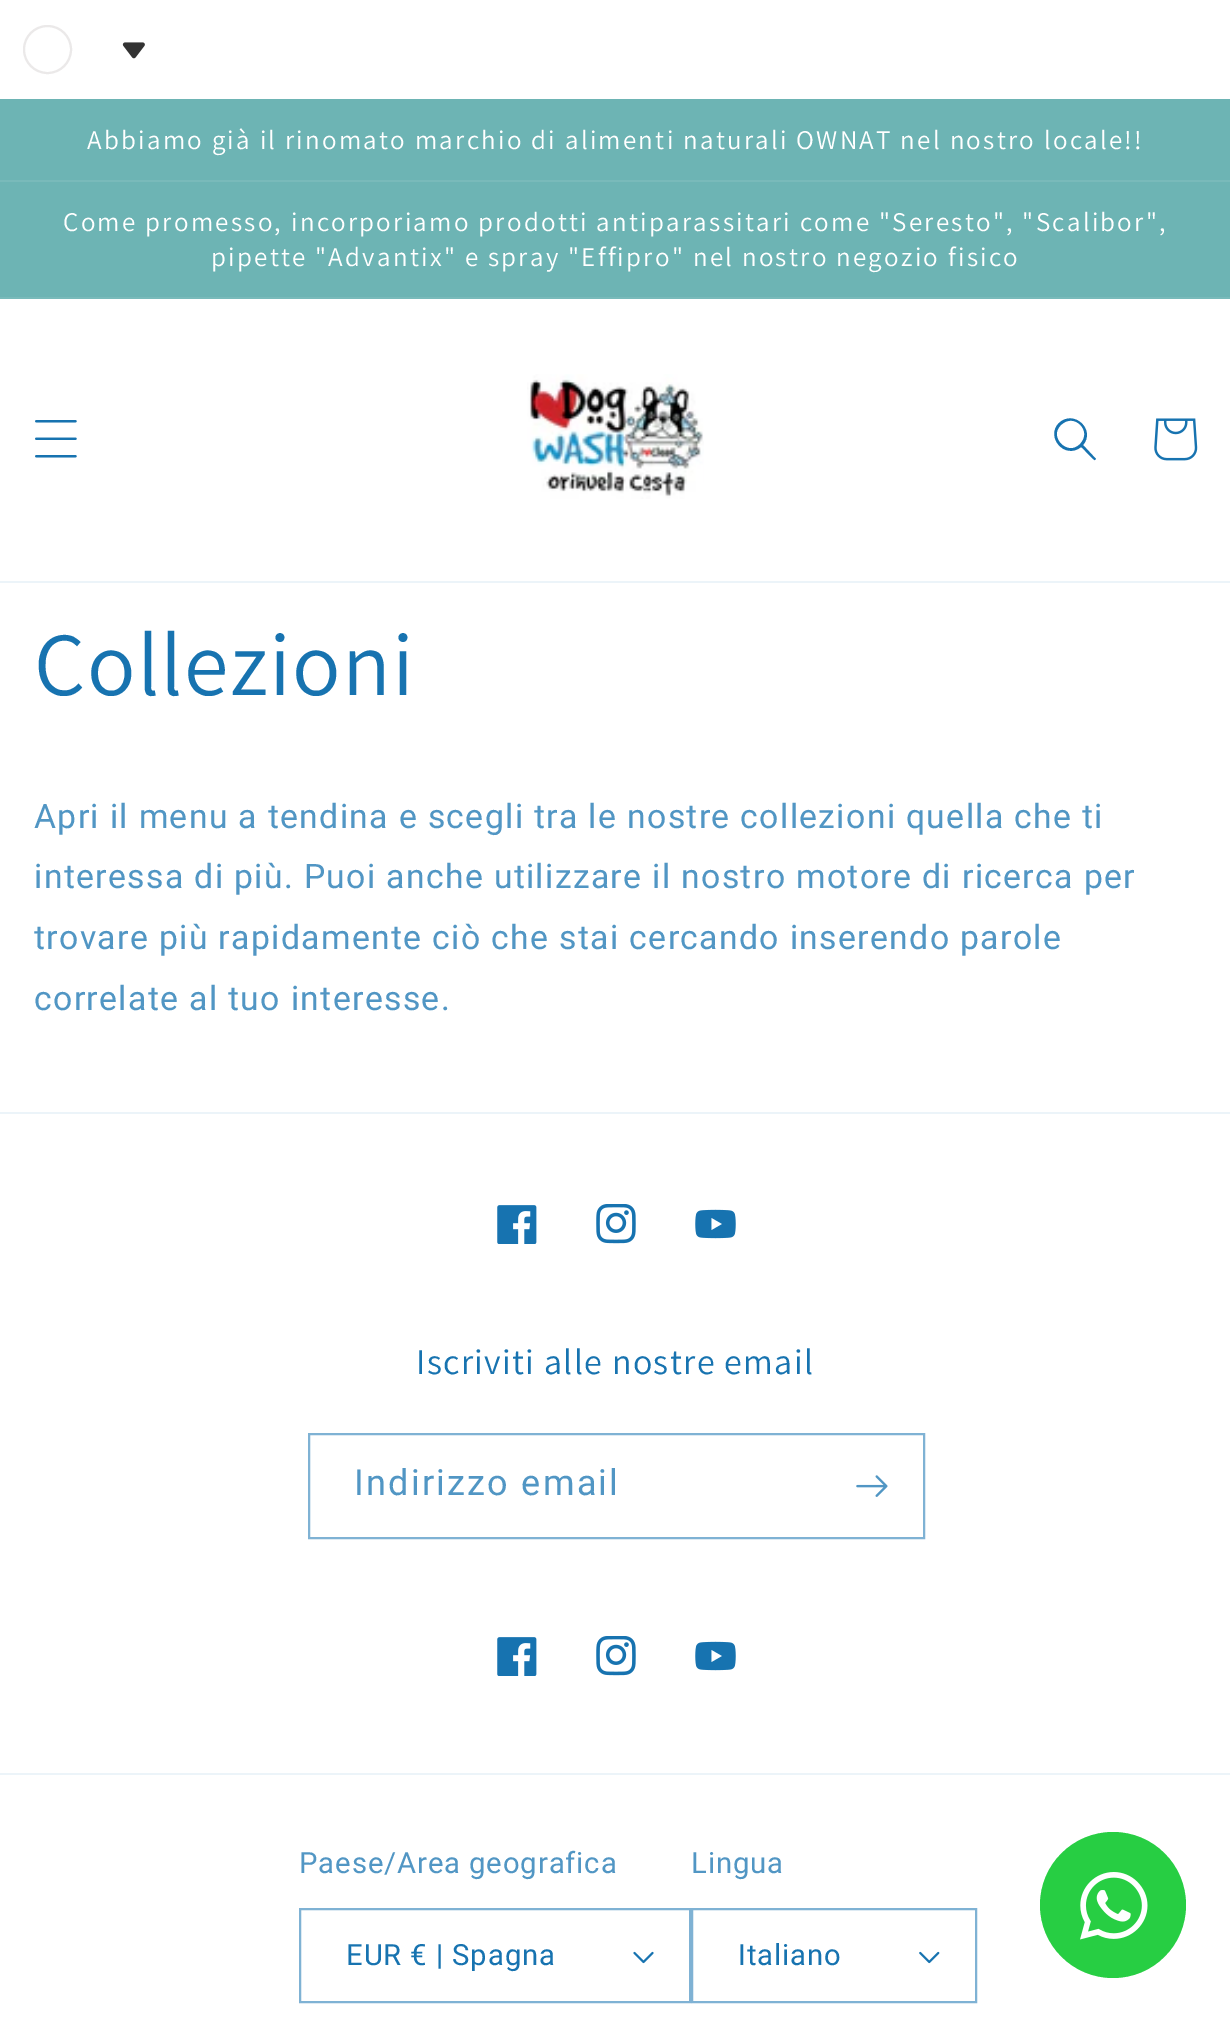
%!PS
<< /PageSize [1230 2021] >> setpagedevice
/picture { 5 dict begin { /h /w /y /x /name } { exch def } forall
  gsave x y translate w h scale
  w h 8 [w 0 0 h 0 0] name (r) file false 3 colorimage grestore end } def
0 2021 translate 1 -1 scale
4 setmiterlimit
1 setgray
0 0 1230 2021 rectfill
0.922 0.914 0.914 setrgbcolor
2 setlinewidth
newpath 47.5 49.5 23.5 0 360 arc closepath stroke
(img1.rgb) 122 42 23 17 picture
0.427 0.706 0.706 setrgbcolor
0 99 1230 81 rectfill
0.475 0.729 0.729 setrgbcolor
0 180 1230 2 rectfill
/Assistant-Regular [27 0 0 -27 0 0] selectfont
1 setgray
87 149 moveto 2.25 0 (Abbiamo già il rinomato marchio di alimenti naturali OWNAT nel nostro locale!!) ashow
0.427 0.706 0.706 setrgbcolor
0 182 1230 115 rectfill
0.475 0.729 0.729 setrgbcolor
0 297 1230 2 rectfill
1 setgray
63 231 moveto 2.25 0 (Come promesso, incorporiamo prodotti antiparassitari come "Seresto", "Scalibor",) ashow
211 266 moveto 2.25 0 (pipette "Advantix" e spray "Effipro" nel nostro negozio fisico) ashow
0.925 0.957 0.976 setrgbcolor
0 581 1230 2 rectfill
(img2.rgb) 35 420 42 38 picture
(img3.rgb) 527 374 177 125 picture
0.09 0.451 0.69 setrgbcolor
newpath 1080 444 moveto 1068 457 1048 437 1061 425 curveto 1074 412 1093 431 1080 444 curveto closepath 1081 447 moveto 1065 460 1045 437 1059 423 curveto 1074 409 1096 430 1083 445 curveto 1096 459 lineto 1095 460 lineto 1094 461 1083 448 1081 447 curveto closepath eofill
(img4.rgb) 1154 418 44 43 picture
/Assistant-Regular [90 0 0 -90 0 0] selectfont
34 695 moveto 1.35 0 (Collezioni) ashow
/Roboto-Regular [33.75 0 0 -33.75 0 0] selectfont
0.318 0.588 0.769 setrgbcolor
34 828 moveto 1.35 0 (Apri il menu a tendina e scegli tra le nostre collezioni quella che ti) ashow
34 888 moveto 1.35 0 (interessa di più. Puoi anche utilizzare il nostro motore di ricerca per) ashow
34 949 moveto 1.35 0 (trovare più rapidamente ciò che stai cercando inserendo parole) ashow
34 1010 moveto 1.35 0 (correlate al tuo interesse.) ashow
0.925 0.957 0.976 setrgbcolor
0 1112 1230 2 rectfill
(img5.rgb) 497 1205 40 39 picture
(img6.rgb) 596 1204 40 40 picture
(img7.rgb) 695 1209 41 30 picture
/Assistant-Regular [36 0 0 -36 0 0] selectfont
0.09 0.451 0.69 setrgbcolor
416 1374 moveto 1.35 0 (Iscriviti alle nostre email) ashow
0.498 0.698 0.831 setrgbcolor
309 1434 615 104 rectstroke
/Roboto-Regular [36 0 0 -36 0 0] selectfont
0.318 0.588 0.769 setrgbcolor
354 1495 moveto 2.25 0 (Indirizzo email) ashow
(img8.rgb) 856 1475 32 22 picture
(img5.rgb) 497 1637 40 39 picture
(img6.rgb) 596 1636 40 40 picture
(img7.rgb) 695 1641 41 30 picture
0.925 0.957 0.976 setrgbcolor
0 1773 1230 2 rectfill
/Roboto-Regular [29.25 0 0 -29.25 0 0] selectfont
0.318 0.588 0.769 setrgbcolor
299 1873 moveto 0.9 0 (Paese/Area geografica) ashow
(img9.rgb) 633 1951 21 13 picture
0.498 0.698 0.831 setrgbcolor
300 1909 390 93 rectstroke
0.09 0.451 0.69 setrgbcolor
346 1965 moveto 0.9 0 (EUR € | Spagna) ashow
0.318 0.588 0.769 setrgbcolor
691 1873 moveto 0.9 0 (Lingua) ashow
(img10.rgb) 919 1951 21 13 picture
0.498 0.698 0.831 setrgbcolor
692 1909 284 93 rectstroke
0.09 0.451 0.69 setrgbcolor
738 1965 moveto 0.9 0 (Italiano) ashow
0.153 0.808 0.263 setrgbcolor
newpath 1113 1905 73 0 360 arc closepath fill
(img11.rgb) 1080 1872 68 68 picture
showpage
